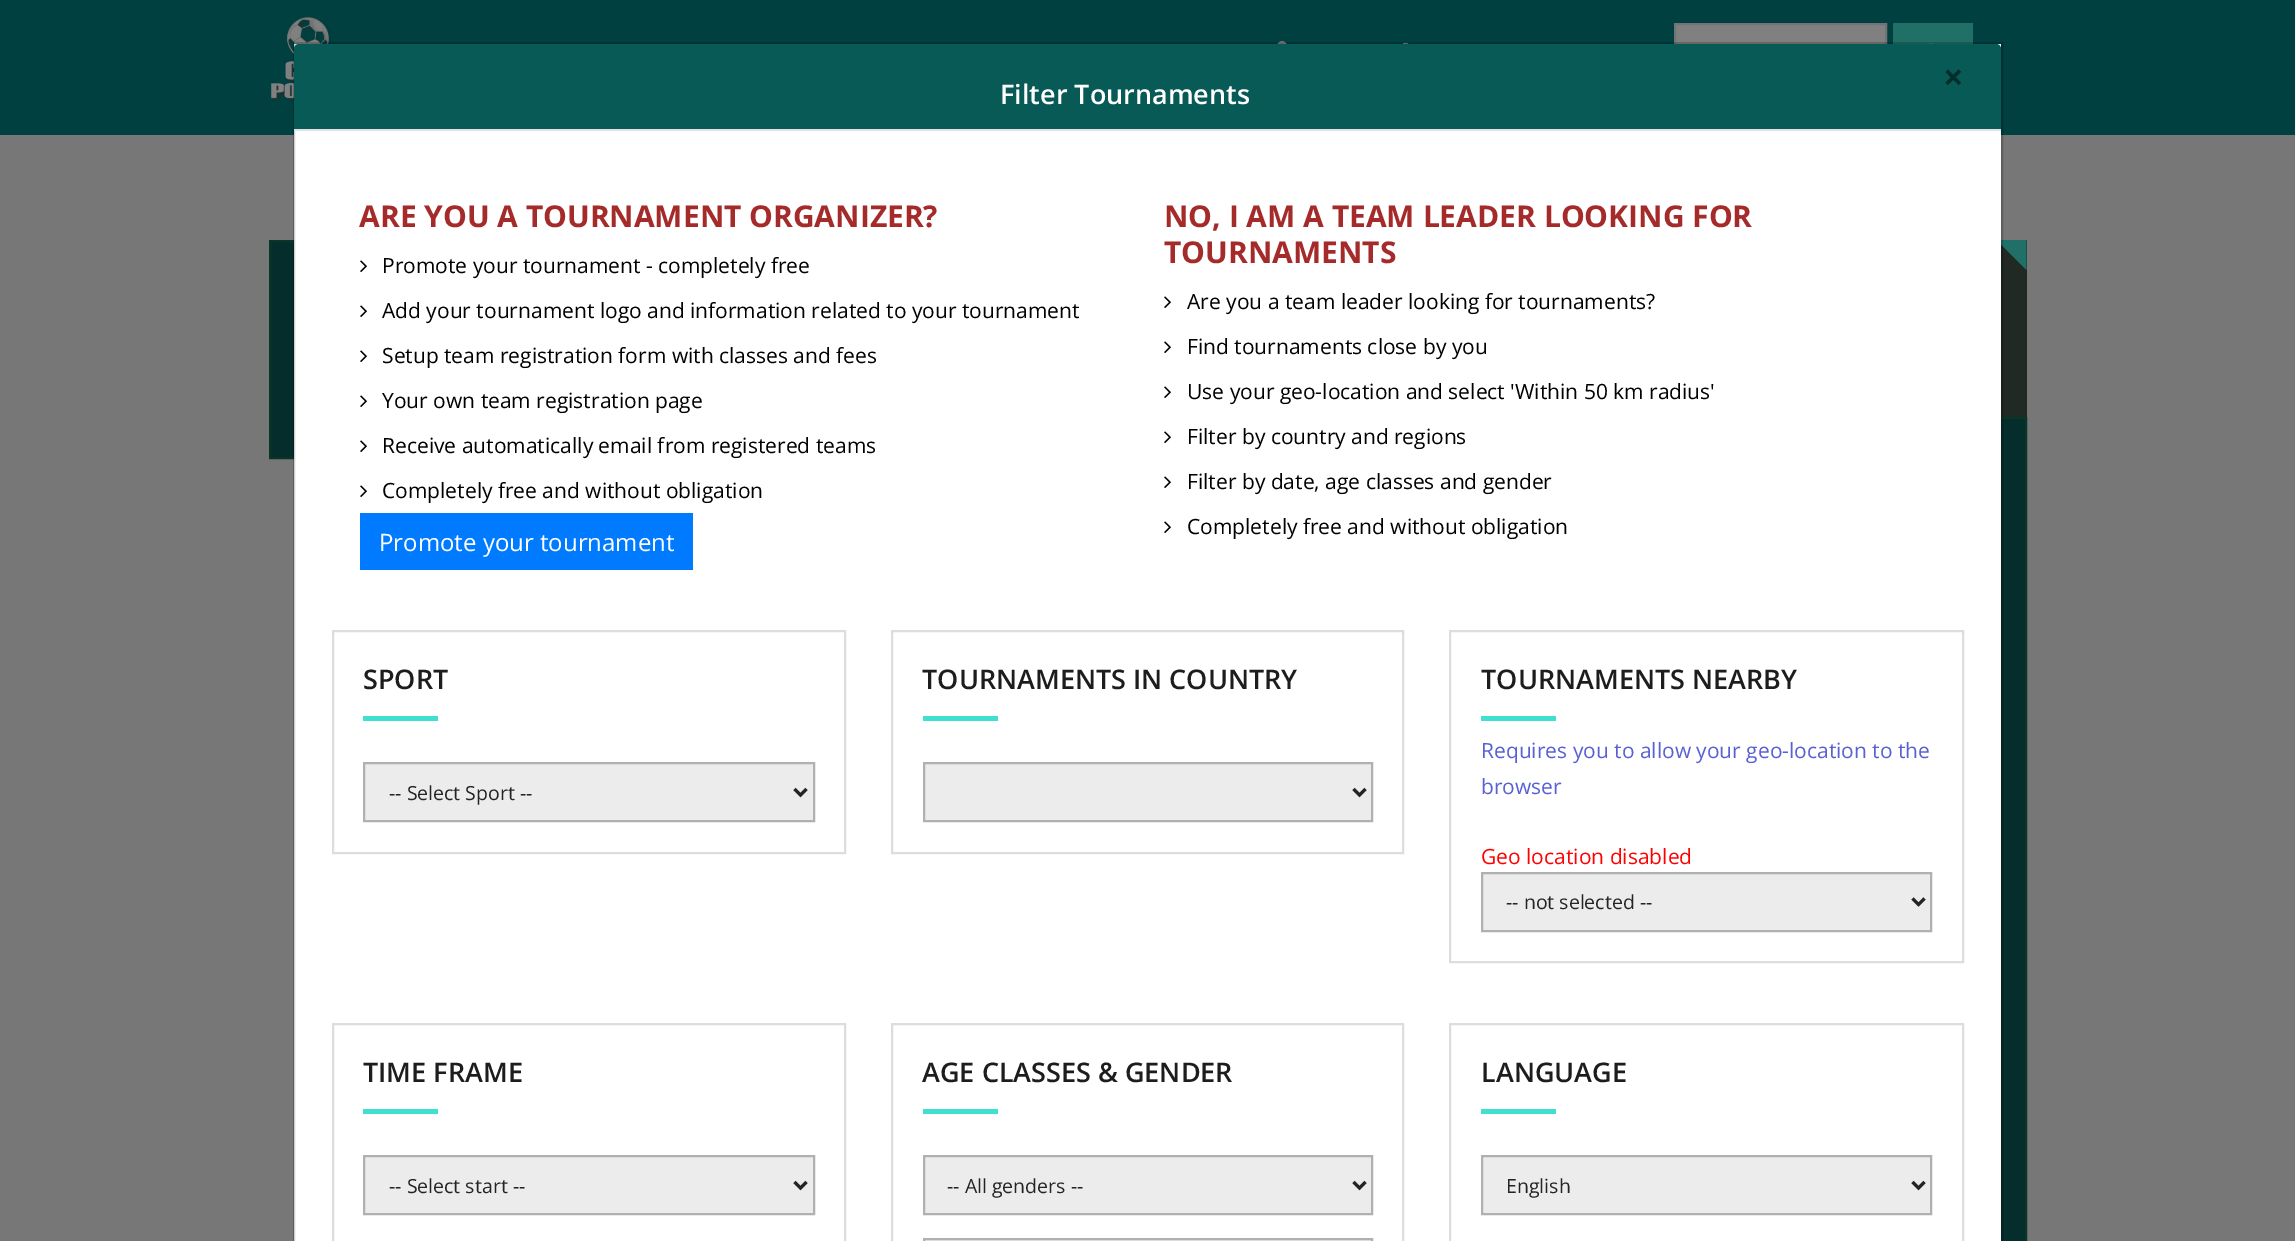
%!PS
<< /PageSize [2295 1241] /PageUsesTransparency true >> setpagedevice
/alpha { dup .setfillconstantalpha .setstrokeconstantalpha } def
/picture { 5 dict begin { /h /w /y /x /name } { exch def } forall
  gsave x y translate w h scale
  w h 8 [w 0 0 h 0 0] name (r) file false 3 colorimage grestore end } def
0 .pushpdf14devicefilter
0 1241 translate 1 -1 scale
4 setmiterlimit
0.467 setgray
0 0 2295 1241 rectfill
0 0.251 0.251 setrgbcolor
0 0 2295 135 rectfill
(img1.rgb) 271 17 62 85 picture
(img2.rgb) 1277 41 10 3 picture
(img3.rgb) 1402 42 7 2 picture
0.502 setgray
1676 25 209 19 rectfill
0.443 0.451 0.463 setrgbcolor
2 setlinewidth
1675 24 211 58 rectstroke
0.125 0.439 0.408 setrgbcolor
1893 23 80 21 rectfill
(img4.rgb) 1928 43 6 1 picture
0.016 0.176 0.173 setrgbcolor
271 242 23 215 rectfill
0.035 0.208 0.161 setrgbcolor
270 241 1160 217 rectstroke
0.129 0.161 0.141 setrgbcolor
2001 240 26 177 rectfill
0.125 0.439 0.408 setrgbcolor
newpath 1996.5 240 moveto 2026.5 240 lineto 2026.5 270 lineto closepath fill
0.016 0.176 0.173 setrgbcolor
2001 419 24 822 rectfill
0.035 0.208 0.161 setrgbcolor
1462 418 564 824 rectstroke
1 setgray
294 44 1707 1197 rectfill
0.2 alpha
0 setgray
294 43 1708 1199 rectstroke
1 alpha
0.031 0.353 0.341 setrgbcolor
newpath 299 44 moveto 1996 44 lineto 1999 44 2001 46 2001 49 curveto 2001 131 lineto 294 131 lineto 294 49 lineto 294 46 296 44 299 44 curveto closepath fill
0.871 0.886 0.902 setrgbcolor
294 129 1707 2 rectfill
/OpenSans-Bold [36 0 0 -36 0 0] selectfont
0.016 0.176 0.173 setrgbcolor
1943 90 moveto (×) show
/OpenSans-SemiBold [27 0 0 -27 0 0] selectfont
1 setgray
1000 104 moveto (Filter Tournaments) show
/OpenSans-Bold [30 0 0 -30 0 0] selectfont
0.647 0.165 0.165 setrgbcolor
359 227 moveto (ARE YOU A TOURNAMENT ORGANIZER?) show
(img5.rgb) 360 260 7 12 picture
/OpenSans-Regular [21 0 0 -21 0 0] selectfont
0 setgray
382 273 moveto (Promote your tournament - completely free) show
(img5.rgb) 360 305 7 12 picture
382 318 moveto (Add your tournament logo and information related to your tournament) show
(img5.rgb) 360 350 7 12 picture
382 363 moveto (Setup team registration form with classes and fees) show
(img5.rgb) 360 395 7 12 picture
382 408 moveto (Your own team registration page) show
(img5.rgb) 360 440 7 12 picture
382 453 moveto (Receive automatically email from registered teams) show
(img5.rgb) 360 485 7 12 picture
382 498 moveto (Completely free and without obligation) show
0 0.482 1 setrgbcolor
360 513 333 57 rectfill
/OpenSans-Regular [24 0 0 -24 0 0] selectfont
1 setgray
379 551 moveto (Promote your tournament) show
/OpenSans-Bold [30 0 0 -30 0 0] selectfont
0.647 0.165 0.165 setrgbcolor
1164 227 moveto (NO, I AM A TEAM LEADER LOOKING FOR) show
1164 263 moveto (TOURNAMENTS) show
(img5.rgb) 1164 296 7 12 picture
/OpenSans-Regular [21 0 0 -21 0 0] selectfont
0 setgray
1187 309 moveto (Are you a team leader looking for tournaments?) show
(img5.rgb) 1164 341 7 12 picture
1187 354 moveto (Find tournaments close by you) show
(img5.rgb) 1164 386 7 12 picture
1187 399 moveto (Use your geo-location and select 'Within 50 km radius') show
(img5.rgb) 1164 431 7 12 picture
1187 444 moveto (Filter by country and regions) show
(img5.rgb) 1164 476 7 12 picture
1187 489 moveto (Filter by date, age classes and gender) show
(img5.rgb) 1164 521 7 12 picture
1187 534 moveto (Completely free and without obligation) show
0.867 setgray
333 631 512 222 rectstroke
/OpenSans-SemiBold [27 0 0 -27 0 0] selectfont
0.114 setgray
363 689 moveto (SPORT) show
0.251 0.878 0.816 setrgbcolor
363 716 75 5 rectfill
0.925 setgray
newpath 364 763 moveto 814 763 lineto 814 821 lineto 364 821 lineto closepath gsave fill grestore
0.69 setgray
stroke
0.141 setgray
3 setlinewidth
newpath 794.5 789 moveto 800.5 795 lineto 806.5 789 lineto stroke
/OpenSans-Regular [19.5 0 0 -19.5 0 0] selectfont
389 800 moveto (-- Select Sport --) show
0.867 setgray
2 setlinewidth
892 631 511 222 rectstroke
/OpenSans-SemiBold [27 0 0 -27 0 0] selectfont
0.114 setgray
922 689 moveto (TOURNAMENTS IN COUNTRY) show
0.251 0.878 0.816 setrgbcolor
923 716 75 5 rectfill
0.925 setgray
newpath 924 763 moveto 1372 763 lineto 1372 821 lineto 924 821 lineto closepath gsave fill grestore
0.69 setgray
stroke
0.141 setgray
3 setlinewidth
newpath 1353.5 789 moveto 1359.5 795 lineto 1365.5 789 lineto stroke
0.867 setgray
2 setlinewidth
1450 631 513 331 rectstroke
0.114 setgray
1481 689 moveto (TOURNAMENTS NEARBY) show
0.251 0.878 0.816 setrgbcolor
1481 716 75 5 rectfill
/OpenSans-Regular [21 0 0 -21 0 0] selectfont
0.345 0.376 0.824 setrgbcolor
1481 758 moveto (Requires you to allow your geo-location to the) show
1481 794 moveto (browser) show
1 0 0 setrgbcolor
1481 864 moveto (Geo location disabled) show
0.925 setgray
newpath 1482 873 moveto 1931 873 lineto 1931 931 lineto 1482 931 lineto closepath gsave fill grestore
0.69 setgray
stroke
0.141 setgray
3 setlinewidth
newpath 1912.5 898.5 moveto 1918.5 904.5 lineto 1924.5 898.5 lineto stroke
/OpenSans-Regular [19.5 0 0 -19.5 0 0] selectfont
1506 909 moveto (-- not selected --) show
0.867 setgray
2 setlinewidth
333 1024 512 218 rectstroke
/OpenSans-SemiBold [27 0 0 -27 0 0] selectfont
0.114 setgray
363 1082 moveto (TIME FRAME) show
0.251 0.878 0.816 setrgbcolor
363 1109 75 5 rectfill
0.925 setgray
newpath 364 1156 moveto 814 1156 lineto 814 1214 lineto 364 1214 lineto closepath gsave fill grestore
0.69 setgray
stroke
0.141 setgray
3 setlinewidth
newpath 794.5 1182 moveto 800.5 1188 lineto 806.5 1182 lineto stroke
/OpenSans-Regular [19.5 0 0 -19.5 0 0] selectfont
389 1193 moveto (-- Select start --) show
0.867 setgray
2 setlinewidth
892 1024 511 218 rectstroke
/OpenSans-SemiBold [27 0 0 -27 0 0] selectfont
0.114 setgray
922 1082 moveto (AGE CLASSES & GENDER) show
0.251 0.878 0.816 setrgbcolor
923 1109 75 5 rectfill
0.925 setgray
newpath 924 1156 moveto 1372 1156 lineto 1372 1214 lineto 924 1214 lineto closepath gsave fill grestore
0.69 setgray
stroke
0.141 setgray
3 setlinewidth
newpath 1353.5 1182 moveto 1359.5 1188 lineto 1365.5 1182 lineto stroke
/OpenSans-Regular [19.5 0 0 -19.5 0 0] selectfont
947 1193 moveto (-- All genders --) show
0.925 setgray
newpath 924 1239 moveto 1372 1239 lineto 1372 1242 lineto 924 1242 lineto closepath gsave fill grestore
0.69 setgray
2 setlinewidth
stroke
0.867 setgray
1450 1024 513 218 rectstroke
/OpenSans-SemiBold [27 0 0 -27 0 0] selectfont
0.114 setgray
1481 1082 moveto (LANGUAGE) show
0.251 0.878 0.816 setrgbcolor
1481 1109 75 5 rectfill
0.925 setgray
newpath 1482 1156 moveto 1931 1156 lineto 1931 1214 lineto 1482 1214 lineto closepath gsave fill grestore
0.69 setgray
stroke
0.141 setgray
3 setlinewidth
newpath 1912.5 1182 moveto 1918.5 1188 lineto 1924.5 1182 lineto stroke
/OpenSans-Regular [19.5 0 0 -19.5 0 0] selectfont
1506 1193 moveto (English) show
.poppdf14devicefilter showpage
